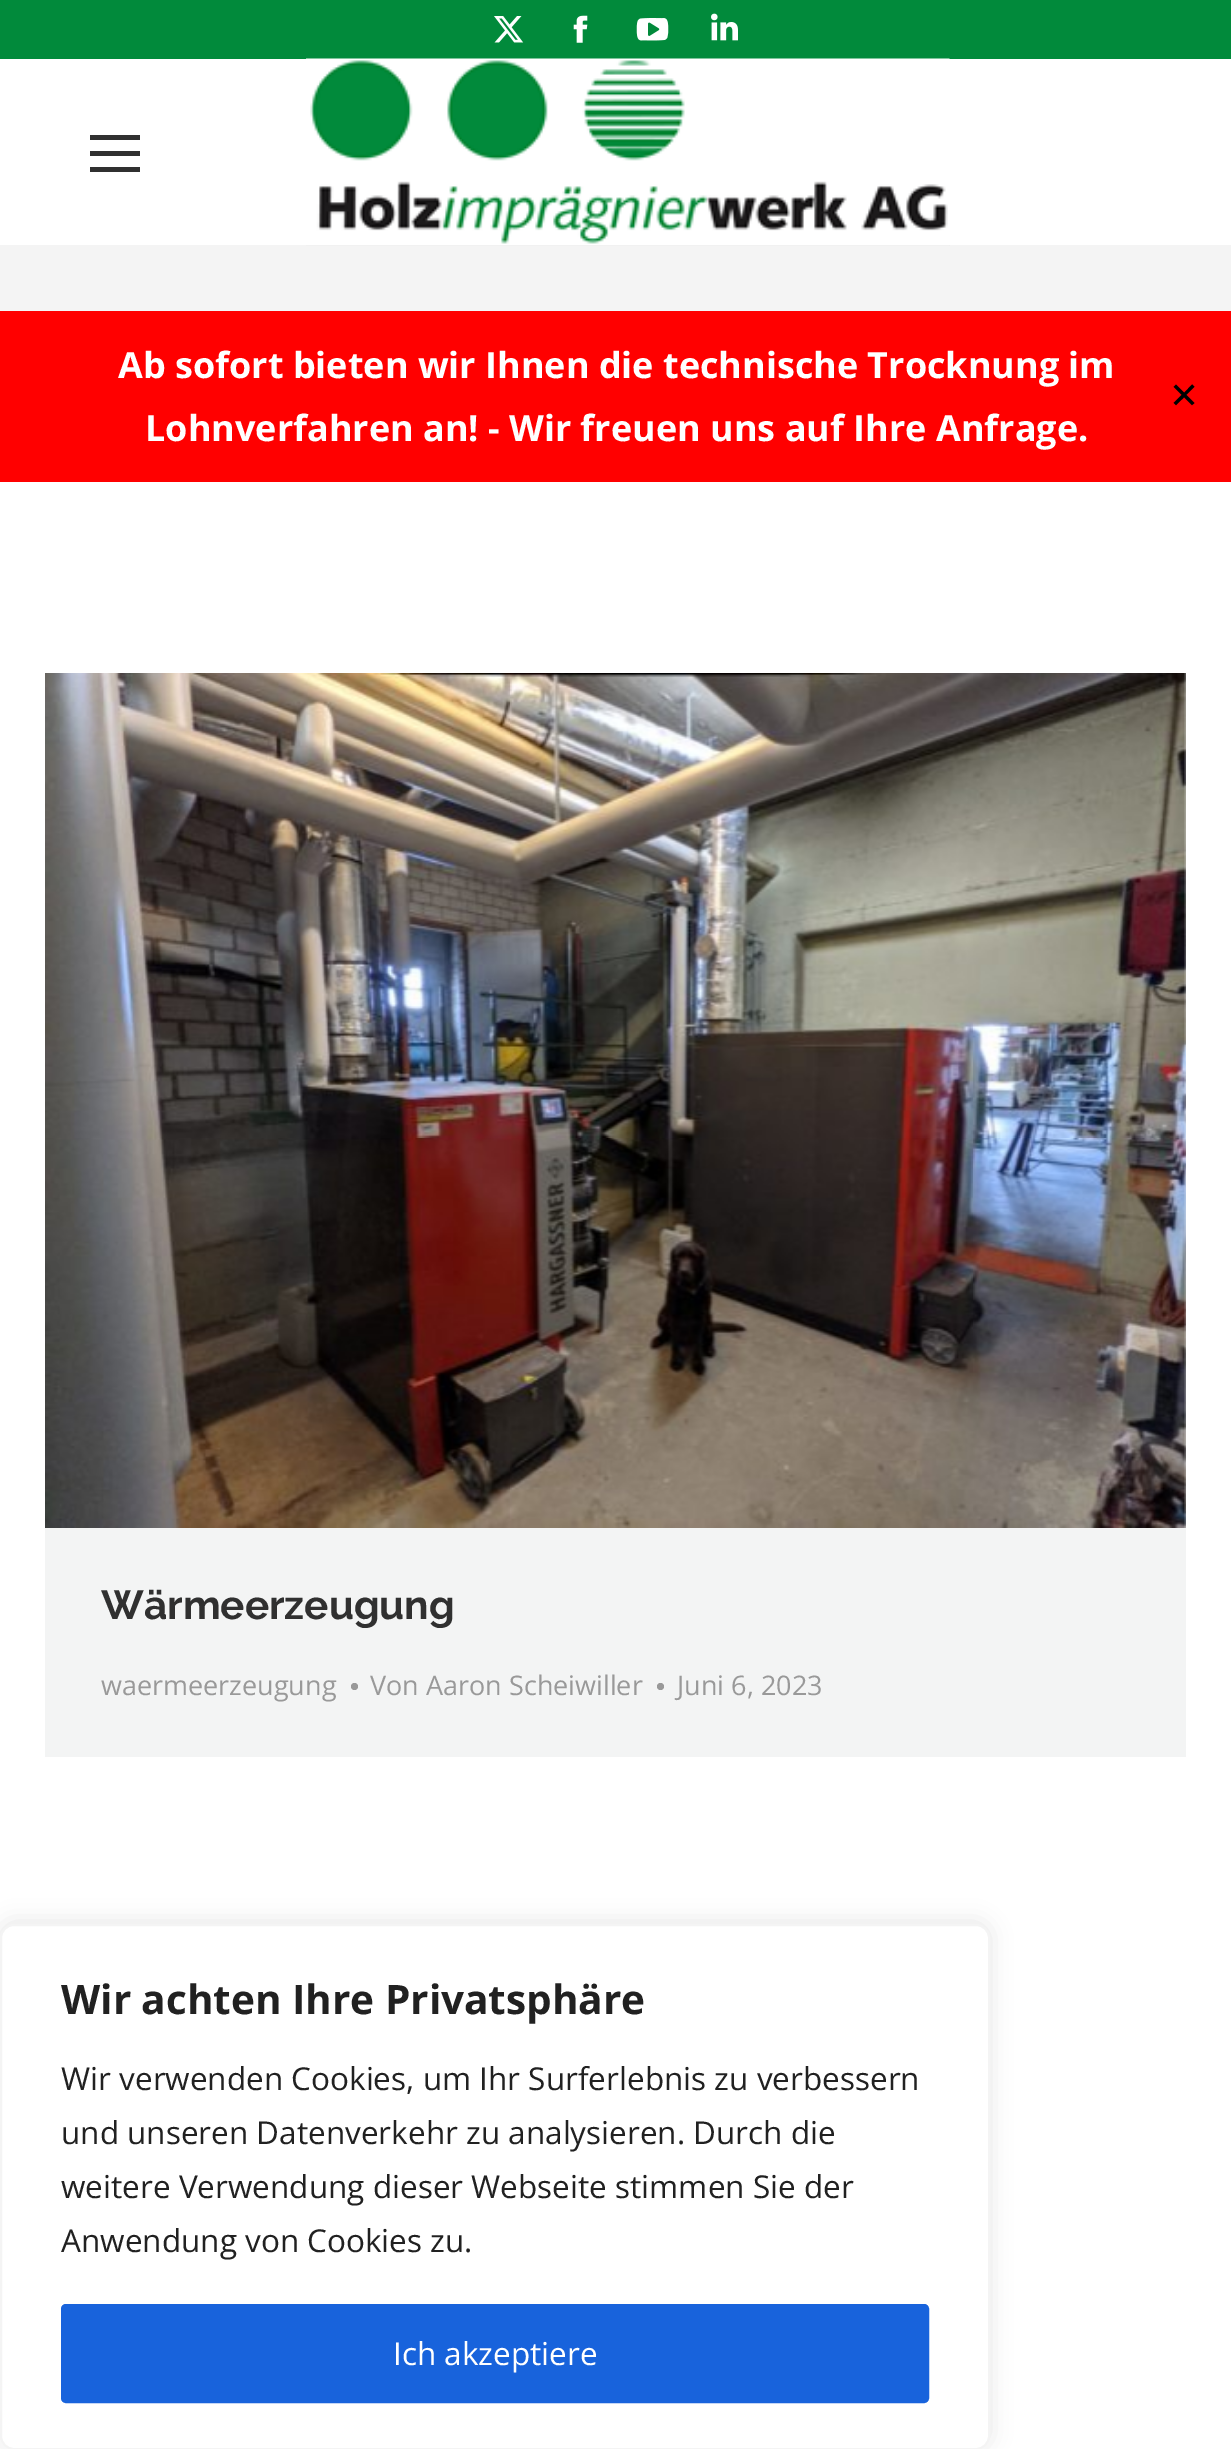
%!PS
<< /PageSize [1231 2449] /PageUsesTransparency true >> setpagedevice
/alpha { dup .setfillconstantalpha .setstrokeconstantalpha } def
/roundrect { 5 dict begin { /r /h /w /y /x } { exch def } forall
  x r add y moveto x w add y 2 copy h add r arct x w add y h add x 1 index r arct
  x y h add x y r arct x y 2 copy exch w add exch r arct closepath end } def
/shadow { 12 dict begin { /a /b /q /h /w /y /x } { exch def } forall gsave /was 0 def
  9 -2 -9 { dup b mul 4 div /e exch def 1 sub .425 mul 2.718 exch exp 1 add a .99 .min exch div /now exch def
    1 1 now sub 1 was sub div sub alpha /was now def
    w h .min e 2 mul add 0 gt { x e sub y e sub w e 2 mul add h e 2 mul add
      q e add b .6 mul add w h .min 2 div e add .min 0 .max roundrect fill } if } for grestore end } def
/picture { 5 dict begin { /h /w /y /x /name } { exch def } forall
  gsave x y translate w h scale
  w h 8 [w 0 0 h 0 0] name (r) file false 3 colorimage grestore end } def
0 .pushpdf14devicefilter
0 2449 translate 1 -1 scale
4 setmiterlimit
1 setgray
0 0 1231 2449 rectfill
1 0 0 setrgbcolor
0 311 1231 171 rectfill
/OpenSans-Bold [36 0 0 -36 0 0] selectfont
1 setgray
118 378 moveto (Ab sofort bieten wir Ihnen die technische Trocknung im) show
145 441 moveto (Lohnverfahren an! - Wir freuen uns auf Ihre Anfrage.) show
/DejaVuSans-Regular [36 0 0 -36 0 0] selectfont
0 setgray
1169 408 moveto (✕) show
0.004 0.541 0.231 setrgbcolor
0 0 1231 59 rectfill
(img1.rgb) 494 16 30 27 picture
(img2.rgb) 573 15 15 28 picture
(img3.rgb) 636 18 33 23 picture
(img4.rgb) 711 13 27 28 picture
0.188 setgray
90 135 50 5 rectfill
90 151 50 5 rectfill
90 167 50 5 rectfill
0.957 setgray
0 245 1231 66 rectfill
(img5.rgb) 306 58 644 188 picture
0.953 0.957 0.957 setrgbcolor
45 673 1141 1084 rectfill
(img6.rgb) 45 673 1141 855 picture
/Raleway-Bold [40.5 0 0 -40.5 0 0] selectfont
0.188 setgray
101 1619 moveto (Wärmeerzeugung) show
/OpenSans-Regular [27 0 0 -27 0 0] selectfont
0.6 setgray
101 1695 moveto (waermeerzeugung) show
newpath 354.5 1686.5 3.5 0 360 arc closepath fill
370 1695 moveto (Von Aaron Scheiwiller) show
newpath 660.5 1686.5 3.5 0 360 arc closepath fill
677 1695 moveto (Juni 6, 2023) show
0.675 0.671 0.671 setrgbcolor
0 1922 990 526 14 11 0.3 shadow
1 setgray
1 1925 988 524 13 roundrect gsave fill grestore
0.957 setgray
2 setlinewidth
stroke
/OpenSans-Bold [40.5 0 0 -40.5 0 0] selectfont
0.129 setgray
61 2014 moveto (Wir achten Ihre Privatsphäre) show
/OpenSans-Regular [31.5 0 0 -31.5 0 0] selectfont
61 2090 moveto (Wir verwenden Cookies, um Ihr Surferlebnis zu verbessern) show
61 2144 moveto (und unseren Datenverkehr zu analysieren. Durch die) show
61 2198 moveto (weitere Verwendung dieser Webseite stimmen Sie der) show
61 2252 moveto (Anwendung von Cookies zu.) show
0.094 0.388 0.863 setrgbcolor
63.5 2306.5 863 94 2.5 roundrect gsave fill grestore
5 setlinewidth
stroke
1 setgray
393 2365 moveto (Ich akzeptiere) show
.poppdf14devicefilter showpage
